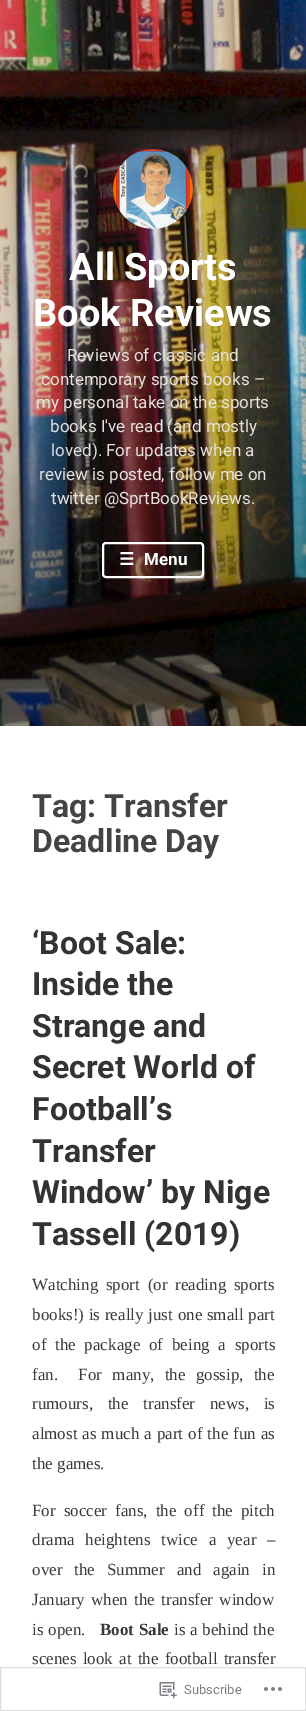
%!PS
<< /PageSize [306 1711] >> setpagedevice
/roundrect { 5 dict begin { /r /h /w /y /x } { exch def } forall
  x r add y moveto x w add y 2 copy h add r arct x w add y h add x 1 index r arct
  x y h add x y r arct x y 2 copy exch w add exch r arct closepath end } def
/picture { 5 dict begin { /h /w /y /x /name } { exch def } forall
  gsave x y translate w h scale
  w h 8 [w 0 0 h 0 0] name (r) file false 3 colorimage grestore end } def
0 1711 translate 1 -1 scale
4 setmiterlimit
1 setgray
0 0 306 1711 rectfill
(img1.rgb) 0 0 306 726 picture
(img2.rgb) 113 149 80 80 picture
/Roboto-Bold [38 0 0 -38 0 0] selectfont
69 280 moveto (All Sports) show
33 326 moveto (Book Reviews) show
/Roboto-Regular [17 0 0 -17 0 0] selectfont
0.902 0.886 0.875 setrgbcolor
67 361 moveto (Reviews of classic and) show
41 385 moveto (contemporary sports books –) show
36 408 moveto (my personal take on the sports) show
50 432 moveto (books I've read \(and mostly) show
0.859 0.867 0.871 setrgbcolor
51 456 moveto (loved\).) show
0.902 0.886 0.875 setrgbcolor
106 456 moveto (For updates when a) show
39 480 moveto (review is posted, follow me on) show
51 504 moveto (twitter @SprtBookReviews.) show
1 setgray
2 setlinewidth
103 543 100 34 3 roundrect stroke
/DejaVuSans-Bold [17 0 0 -17 0 0] selectfont
119 565 moveto (☰) show
/Roboto-Bold [17 0 0 -17 0 0] selectfont
144 565 moveto (Menu) show
/Roboto-Bold [32 0 0 -32 0 0] selectfont
0.267 setgray
32 817 moveto (Tag: Transfer) show
32 852 moveto (Deadline Day) show
0.2 0.2 0.196 setrgbcolor
32 954 moveto (‘Boot Sale:) show
32 995 moveto (Inside the) show
32 1037 moveto (Strange and) show
32 1078 moveto (Secret World of) show
32 1120 moveto (Football’s) show
32 1162 moveto (Transfer) show
32 1203 moveto (Window’ by Nige) show
32 1245 moveto (Tassell \(2019\)) show
/LiberationSerif-Regular [17 0 0 -17 0 0] selectfont
0.22 setgray
32 1290 moveto 3.5 0 32 (Watching sport \(or reading sports) widthshow
32 1320 moveto 0.5 0 32 (books!\) is really just one small part) widthshow
32 1350 moveto 4.5 0 32 (of the package of being a sports) widthshow
32 1380 moveto 6 0 32 (fan.  For many, the gossip, the) widthshow
32 1409 moveto 10.5 0 32 (rumours, the transfer news, is) widthshow
32 1439 moveto 0.75 0 32 (almost as much a part of the fun as) widthshow
32 1469 moveto (the games.) show
32 1516 moveto 3.75 0 32 (For soccer fans, the off the pitch) widthshow
32 1545 moveto 6.5 0 32 (drama heightens twice a year –) widthshow
32 1575 moveto 7.75 0 32 (over the Summer and again in) widthshow
32 1605 moveto 2 0 32 (January when the transfer window) widthshow
32 1635 moveto 0.5 0 32 (is open.) widthshow
/LiberationSerif-Bold [17 0 0 -17 0 0] selectfont
100 1635 moveto 0.5 0 32 (Boot Sale) widthshow
/LiberationSerif-Regular [17 0 0 -17 0 0] selectfont
174 1635 moveto 0.5 0 32 (is a behind the) widthshow
32 1664 moveto 2 0 32 (scenes look at the football transfer) widthshow
0.867 0.867 0.875 setrgbcolor
1 setlinewidth
0.5 1667.5 305 43 rectstroke
(img3.rgb) 159 1682 18 17 picture
/Roboto-Regular [13 0 0 -13 0 0] selectfont
0.482 0.498 0.518 setrgbcolor
184 1694 moveto (Subscribe) show
(img4.rgb) 264 1687 18 4 picture
showpage
